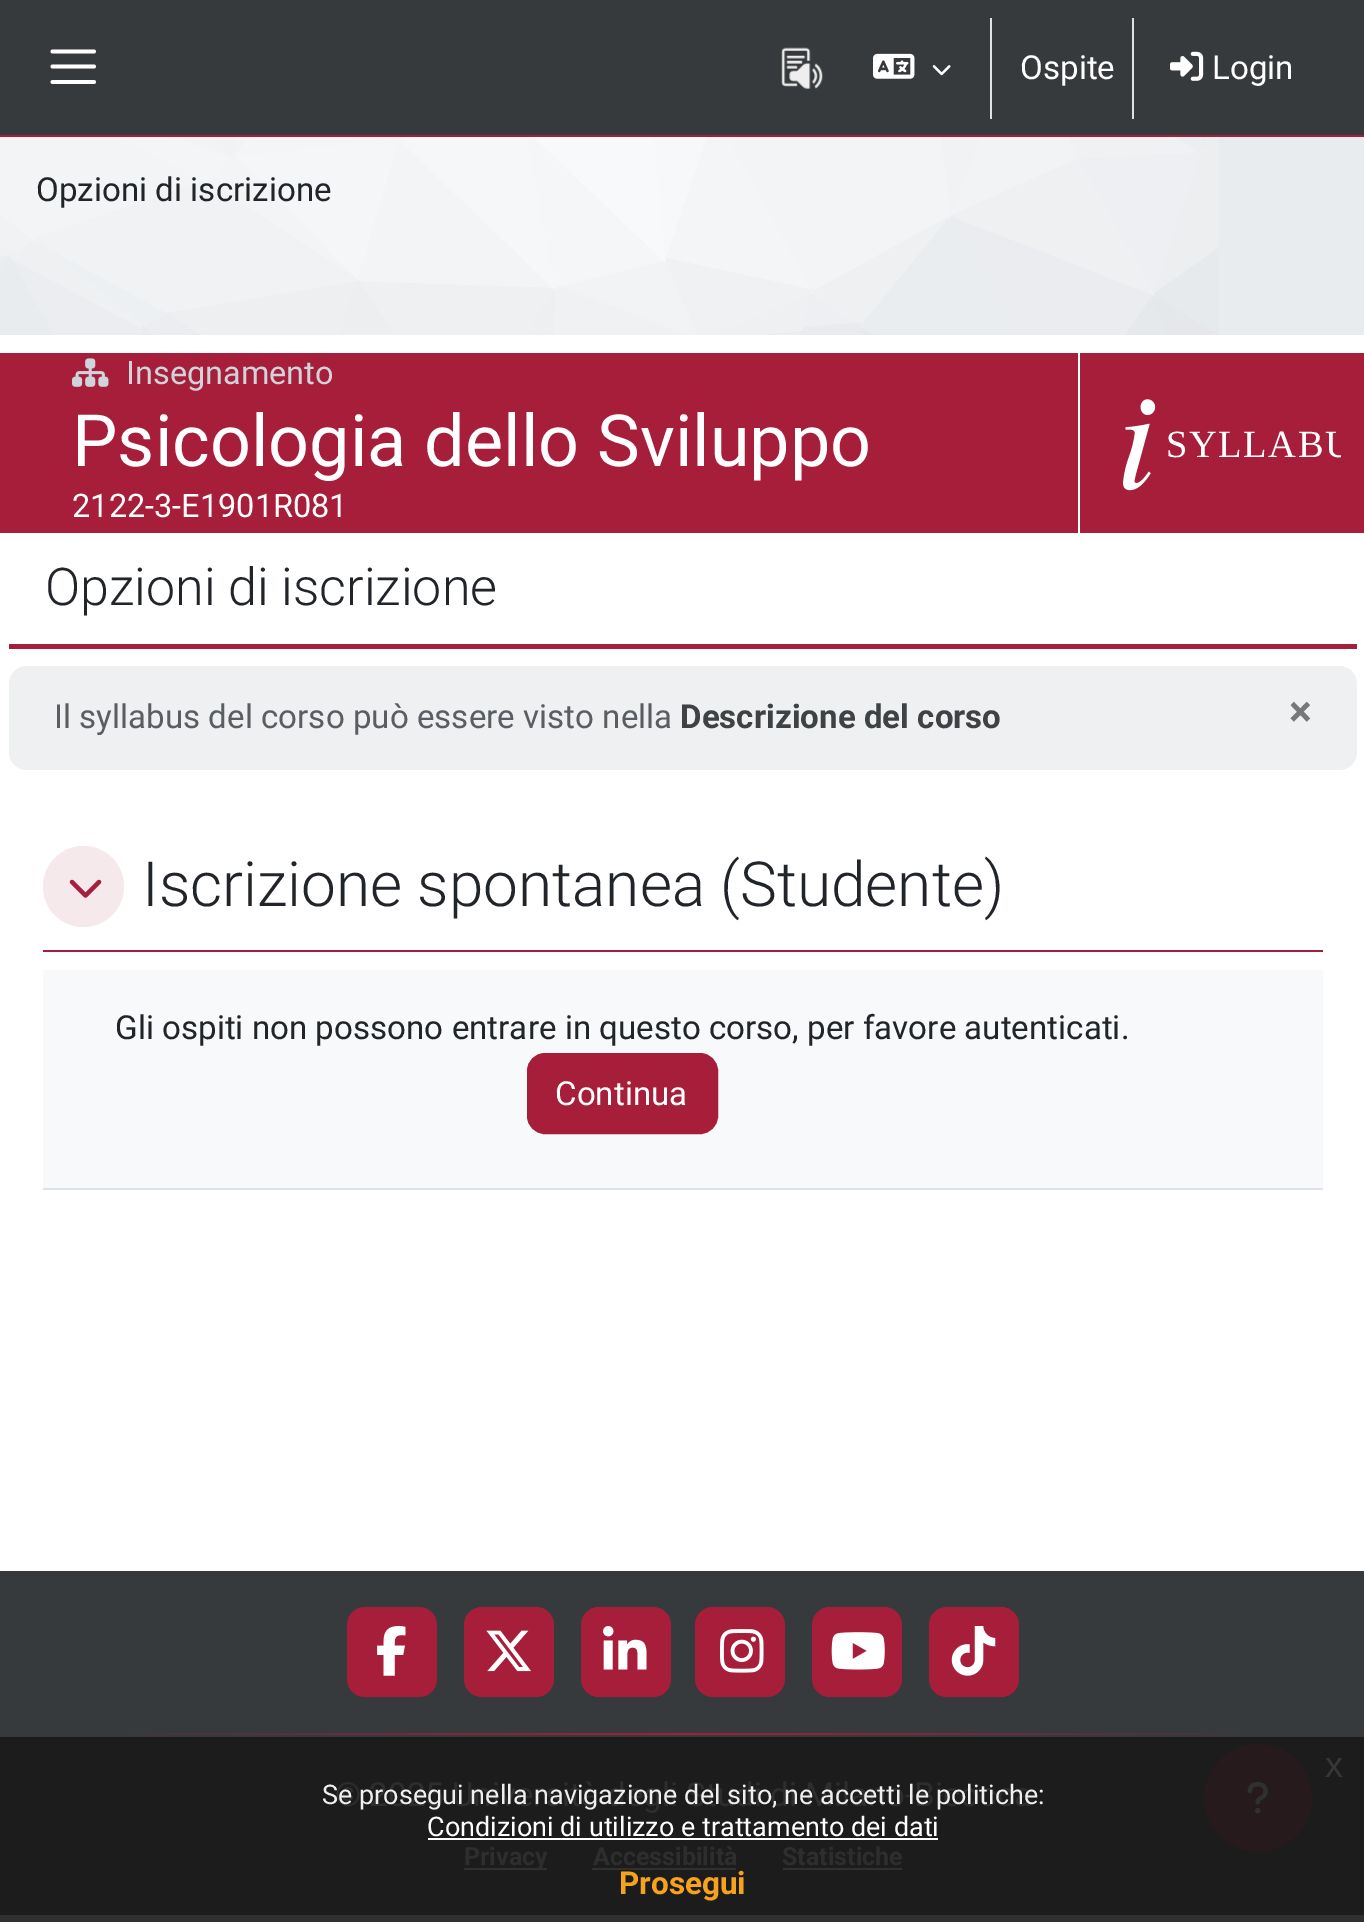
%!PS
<< /PageSize [1364 1922] >> setpagedevice
/roundrect { 5 dict begin { /r /h /w /y /x } { exch def } forall
  x r add y moveto x w add y 2 copy h add r arct x w add y h add x 1 index r arct
  x y h add x y r arct x y 2 copy exch w add exch r arct closepath end } def
/picture { 5 dict begin { /h /w /y /x /name } { exch def } forall
  gsave x y translate w h scale
  w h 8 [w 0 0 h 0 0] name (r) file false 3 colorimage grestore end } def
0 1922 translate 1 -1 scale
4 setmiterlimit
1 setgray
0 0 1364 1922 rectfill
0.188 setgray
0 1915 1364 7 rectfill
0.216 0.227 0.235 setrgbcolor
0 0 1364 135 rectfill
0.655 0.118 0.231 setrgbcolor
0 135 1364 2 rectfill
1 setgray
3.8 setlinewidth
1 setlinecap
newpath 52.5 51.5 moveto 94 51.5 lineto 52.5 66.5 moveto 94 66.5 lineto 52.5 82 moveto 94 82 lineto stroke
(img1.rgb) 781 47 42 42 picture
(img2.rgb) 873 53 42 26 picture
(img3.rgb) 932 65 19 11 picture
0.871 0.886 0.902 setrgbcolor
990 18 2 101 rectfill
/Roboto-Regular [33.15 0 0 -33.15 0 0] selectfont
1 setgray
1020 79 moveto (Ospite) show
0.871 0.886 0.902 setrgbcolor
1132 18 2 101 rectfill
(img4.rgb) 1170 51 34 30 picture
1 setgray
1212 79 moveto (Login) show
0.914 0.925 0.937 setrgbcolor
1219 137 145 198 rectfill
(img5.rgb) 0 137 1219 198 picture
0.129 0.145 0.161 setrgbcolor
36 201 moveto (Opzioni di iscrizione) show
0.655 0.118 0.231 setrgbcolor
0 353 1364 180 rectfill
(img6.rgb) 72 358 37 29 picture
/Roboto-Regular [32.5 0 0 -32.5 0 0] selectfont
0.808 0.831 0.855 setrgbcolor
126 384 moveto (Insegnamento) show
/Roboto-Regular [72 0 0 -72 0 0] selectfont
1 setgray
72 466 moveto (Psicologia dello Sviluppo) show
/Roboto-Regular [32.5 0 0 -32.5 0 0] selectfont
72 517 moveto (2122-3-E1901R081) show
1078 353 2 180 rectfill
(img7.rgb) 1123 399 33 92 picture
gsave
1105 374 236 144 rectclip
/LiberationSerif-Regular [38.5 0 0 -38.5 0 0] selectfont
1166 457 moveto 1.5 0 (SYLLABU) ashow
grestore
0.655 0.118 0.231 setrgbcolor
9 644 1348 5 rectfill
/Roboto-Light [52 0 0 -52 0 0] selectfont
0.129 0.145 0.161 setrgbcolor
45 605 moveto (Opzioni di iscrizione) show
0.937 0.941 0.949 setrgbcolor
9 666 1348 104 18 roundrect fill
/Roboto-Regular [33.15 0 0 -33.15 0 0] selectfont
0.353 0.369 0.384 setrgbcolor
54 728 moveto (Il syllabus del corso può essere visto nella) show
/Roboto-Bold [33.15 0 0 -33.15 0 0] selectfont
0.247 0.259 0.267 setrgbcolor
680 728 moveto (Descrizione del corso) show
/Roboto-Bold [43 0 0 -43 0 0] selectfont
0.463 0.471 0.478 setrgbcolor
1289 726 moveto (×) show
0.871 0.886 0.902 setrgbcolor
43 1188 1280 2 rectfill
0.655 0.118 0.231 setrgbcolor
43 950 1280 2 rectfill
0.965 0.914 0.922 setrgbcolor
newpath 83.5 886.5 40.5 0 360 arc closepath fill
(img8.rgb) 69 879 33 19 picture
/Roboto-Light [62.1 0 0 -62.1 0 0] selectfont
0.129 0.145 0.161 setrgbcolor
142 906 moveto (Iscrizione spontanea \(Studente\)) show
0.973 0.976 0.98 setrgbcolor
43 970 1280 218 rectfill
/Roboto-Regular [33.15 0 0 -33.15 0 0] selectfont
0.129 0.145 0.161 setrgbcolor
115 1039 moveto (Gli ospiti non possono entrare in questo corso, per favore autenticati.) show
0.655 0.118 0.231 setrgbcolor
528 1054 189 79 17 roundrect gsave fill grestore
2 setlinewidth
0 setlinecap
stroke
1 setgray
555 1105 moveto (Continua) show
0.216 0.227 0.235 setrgbcolor
0 1571 1364 166 rectfill
0.11 0.11 0.114 setrgbcolor
0 1737 1364 178 rectfill
0.655 0.118 0.231 setrgbcolor
347 1607 90 90 18 roundrect fill
(img9.rgb) 377 1626 29 50 picture
464 1607 90 90 18 roundrect fill
(img10.rgb) 486 1630 45 42 picture
581 1607 90 90 18 roundrect fill
(img11.rgb) 603 1626 44 44 picture
695 1607 90 90 18 roundrect fill
(img12.rgb) 720 1629 44 44 picture
812 1607 90 90 18 roundrect fill
(img13.rgb) 831 1632 54 38 picture
929 1607 90 90 18 roundrect fill
(img14.rgb) 951 1626 45 50 picture
gsave newpath 112 1733 moveto 1254 1733 lineto 1254 1735 lineto 112 1735 lineto closepath clip newpath
<< /ShadingType 2 /ColorSpace /DeviceRGB /Coords [99 1734 1267 1734] /Extend [true true] /Function << /FunctionType 3 /Domain [0 1] /Functions [<< /FunctionType 2 /Domain [0 1] /C0 [0.216 0.227 0.235] /C1 [0.655 0.118 0.231] /N 1 >> << /FunctionType 2 /Domain [0 1] /C0 [0.655 0.118 0.231] /C1 [0.216 0.227 0.235] /N 1 >>] /Bounds [0.5] /Encode [0 1 0 1] >> >> shfill grestore
0.18 setgray
335 1806 moveto (© 2025 Università degli Studi di Milano-Bicocca) show
0.188 setgray
464 1868 83 2 rectfill
/Roboto-Bold [25 0 0 -25 0 0] selectfont
0.18 setgray
464 1865 moveto (Privacy) show
593 1865 moveto (Accessibilità) show
0.188 setgray
592 1868 144 2 rectfill
0.18 setgray
782 1865 moveto (Statistiche) show
0.188 setgray
783 1868 119 2 rectfill
0.153 0.102 0.11 setrgbcolor
newpath 1258 1798 53 0 360 arc closepath gsave fill grestore
stroke
(img15.rgb) 1247 1782 21 32 picture
/LiberationSans-Regular [36 0 0 -36 0 0] selectfont
0.216 setgray
1325 1777 moveto (x) show
/Roboto-Regular [27 0 0 -27 0 0] selectfont
0.937 setgray
322 1804 moveto (Se prosegui nella navigazione del sito, ne accetti le politiche:) show
1 setgray
427 1836 moveto (Condizioni di utilizzo e trattamento dei dati) show
428 1838 510 2 rectfill
/Roboto-Bold [31.5 0 0 -31.5 0 0] selectfont
0.965 0.635 0.114 setrgbcolor
619 1894 moveto (Prosegui) show
showpage
